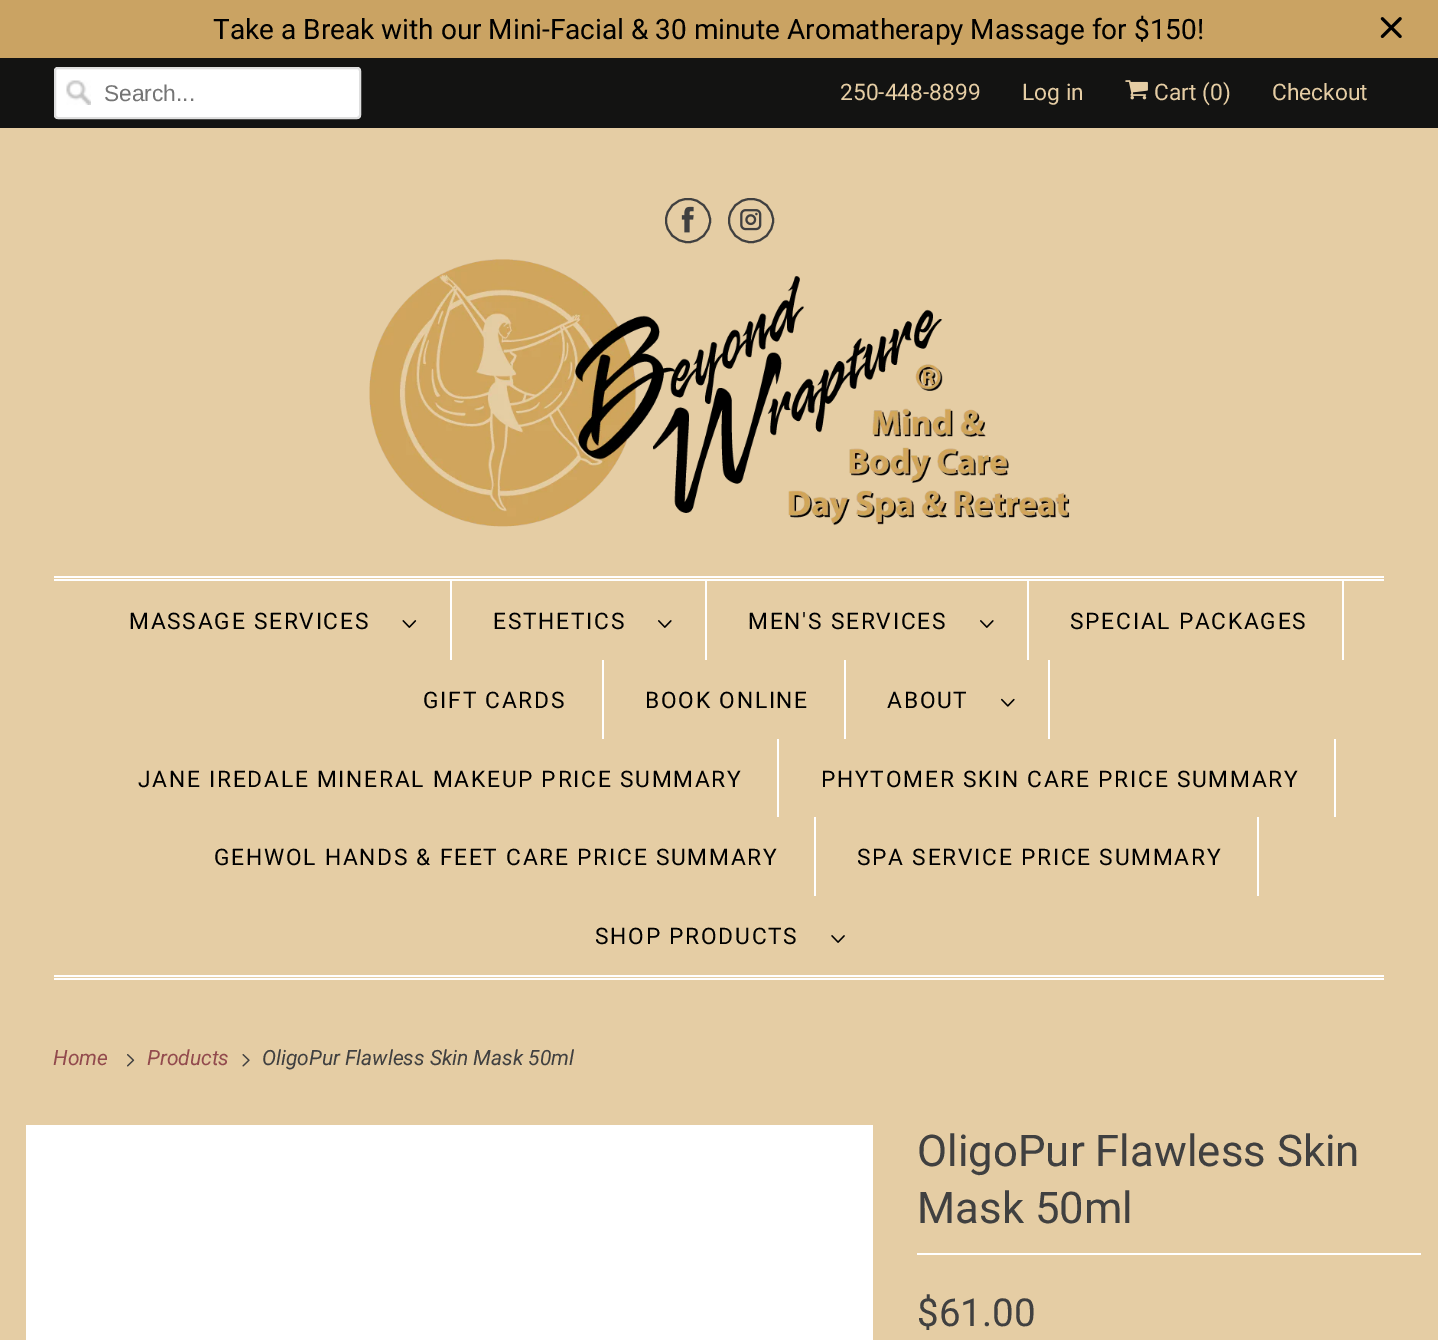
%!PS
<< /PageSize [1438 1340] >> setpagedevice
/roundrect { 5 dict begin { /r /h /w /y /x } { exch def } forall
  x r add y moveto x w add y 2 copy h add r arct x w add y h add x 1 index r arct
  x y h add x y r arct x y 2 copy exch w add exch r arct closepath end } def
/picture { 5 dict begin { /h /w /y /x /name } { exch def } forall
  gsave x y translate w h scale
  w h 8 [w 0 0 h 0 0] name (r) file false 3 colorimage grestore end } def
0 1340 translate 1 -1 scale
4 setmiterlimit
0.898 0.804 0.643 setrgbcolor
0 0 1438 1340 rectfill
0.792 0.639 0.388 setrgbcolor
0 0 1438 58 rectfill
/Roboto-Regular [28 0 0 -28 0 0] selectfont
0 setgray
213 39 moveto (Take a Break with our Mini-Facial & 30 minute Aromatherapy Massage for $150!) show
(img1.rgb) 1380 17 22 22 picture
0.075 0.075 0.071 setrgbcolor
0 58 1438 70 rectfill
1 setgray
54 67 307 52 4 roundrect fill
(img2.rgb) 66 80 25 25 picture
0.875 setgray
2 setlinewidth
55 68 305 50 3 roundrect stroke
/LiberationSans-Regular [22.75 0 0 -22.75 0 0] selectfont
0.459 setgray
104 101 moveto (Search...) show
/Roboto-Regular [22.75 0 0 -22.75 0 0] selectfont
0.898 0.804 0.643 setrgbcolor
840 100 moveto (250-448-8899) show
1022 100 moveto (Log in) show
(img3.rgb) 1125 80 23 20 picture
1154 100 moveto (Cart \(0\)) show
1272 100 moveto (Checkout) show
0.251 setgray
666 199 44 43 21.5 roundrect stroke
(img4.rgb) 681 206 13 27 picture
729 199 44 43 21.5 roundrect stroke
(img5.rgb) 740 209 22 22 picture
(img6.rgb) 369 259 701 268 picture
1 setgray
54 576 1330 2 rectfill
54 579 1330 2 rectfill
54 975 1330 2 rectfill
54 978 1330 2 rectfill
450 581 2 79 rectfill
0 setgray
129 629 moveto 1.75 0 (MASSAGE SERVICES) ashow
(img7.rgb) 402 620 15 8 picture
1 setgray
705 581 2 79 rectfill
0 setgray
493 629 moveto 1.75 0 (ESTHETICS) ashow
(img8.rgb) 658 620 14 8 picture
1 setgray
1027 581 2 79 rectfill
0 setgray
748 629 moveto 1.75 0 (MEN'S SERVICES) ashow
(img8.rgb) 980 620 14 8 picture
1 setgray
1342 581 2 79 rectfill
0 setgray
1070 629 moveto 1.75 0 (SPECIAL PACKAGES) ashow
1 setgray
602 660 2 79 rectfill
0 setgray
423 708 moveto 1.75 0 (GIFT CARDS) ashow
1 setgray
844 660 2 79 rectfill
0 setgray
645 708 moveto 1.75 0 (BOOK ONLINE) ashow
1 setgray
1048 660 2 79 rectfill
0 setgray
887 708 moveto 1.75 0 (ABOUT) ashow
(img9.rgb) 1001 698 14 9 picture
1 setgray
777 739 2 78 rectfill
0 setgray
138 787 moveto 1.75 0 (JANE IREDALE MINERAL MAKEUP PRICE SUMMARY) ashow
1 setgray
1334 739 2 78 rectfill
0 setgray
821 787 moveto 1.75 0 (PHYTOMER SKIN CARE PRICE SUMMARY) ashow
1 setgray
814 817 2 79 rectfill
0 setgray
214 865 moveto 1.75 0 (GEHWOL HANDS & FEET CARE PRICE SUMMARY) ashow
1 setgray
1257 817 2 79 rectfill
0 setgray
857 865 moveto 1.75 0 (SPA SERVICE PRICE SUMMARY) ashow
595 944 moveto 1.75 0 (SHOP PRODUCTS) ashow
(img10.rgb) 831 935 14 8 picture
/Roboto-Italic [21 0 0 -21 0 0] selectfont
0.573 0.29 0.302 setrgbcolor
53 1065 moveto (Home) show
(img11.rgb) 127 1054 8 13 picture
147 1065 moveto (Products) show
(img12.rgb) 242 1054 8 13 picture
0.251 setgray
262 1065 moveto (OligoPur Flawless Skin Mask 50ml) show
1 setgray
26 1125 847 215 rectfill
917 1253 504 2 rectfill
/Roboto-Regular [43.75 0 0 -43.75 0 0] selectfont
0.251 setgray
917 1166 moveto (OligoPur Flawless Skin) show
917 1223 moveto (Mask 50ml) show
/Roboto-Regular [38.5 0 0 -38.5 0 0] selectfont
917 1326 moveto ($61.00) show
showpage
